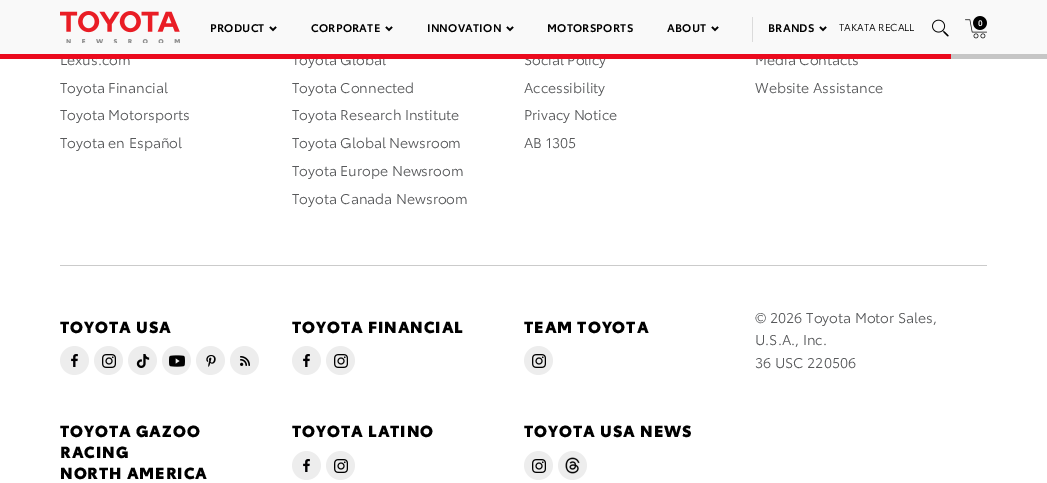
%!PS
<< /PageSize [1047 483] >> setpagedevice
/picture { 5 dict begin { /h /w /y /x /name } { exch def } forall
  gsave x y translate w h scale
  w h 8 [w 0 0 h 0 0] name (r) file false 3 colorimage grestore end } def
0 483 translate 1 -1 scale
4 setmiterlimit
1 setgray
0 0 1047 483 rectfill
0.976 setgray
0 0 1047 54 rectfill
(img1.rgb) 60 11 120 32 picture
/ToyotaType-SemiBold [11 0 0 -11 0 0] selectfont
0 setgray
210 32 moveto 0.25 0 (PRODUCT) ashow
1.5 setlinewidth
newpath 276 27 moveto 273 30 lineto 270 27 lineto stroke
311 32 moveto 0.25 0 (CORPORATE) ashow
newpath 392 27 moveto 389 30 lineto 386 27 lineto stroke
427 32 moveto 0.25 0 (INNOVATION) ashow
newpath 513 27 moveto 510 30 lineto 507 27 lineto stroke
547 32 moveto 0.25 0 (MOTORSPORTS) ashow
667 32 moveto 0.25 0 (ABOUT) ashow
newpath 718 27 moveto 715 30 lineto 712 27 lineto stroke
0.859 setgray
752 17 1 25 rectfill
0 setgray
768 32 moveto 0.25 0 (BRANDS) ashow
newpath 826 27 moveto 823 30 lineto 820 27 lineto stroke
/ToyotaType-Regular [10 0 0 -10 0 0] selectfont
839 31 moveto (TAKATA RECALL) show
(img2.rgb) 932 19 17 18 picture
(img3.rgb) 965 16 22 23 picture
/ToyotaType-SemiBold [8 0 0 -8 0 0] selectfont
1 setgray
978 26 moveto (0) show
0.776 setgray
951 54 96 5 rectfill
/ToyotaType-Regular [14 0 0 -14 0 0] selectfont
0.345 0.349 0.357 setrgbcolor
60 65 moveto (Lexus.com) show
292 65 moveto (Toyota Global) show
524 65 moveto (Social Policy) show
755 65 moveto (Media Contacts) show
0.922 0.039 0.114 setrgbcolor
0 54 951 5 rectfill
0.345 0.349 0.357 setrgbcolor
60 93 moveto (Toyota Financial) show
60 120 moveto (Toyota Motorsports) show
60 148 moveto (Toyota en Español) show
292 93 moveto (Toyota Connected) show
292 120 moveto (Toyota Research Institute) show
292 148 moveto (Toyota Global Newsroom) show
292 176 moveto (Toyota Europe Newsroom) show
292 204 moveto (Toyota Canada Newsroom) show
524 93 moveto (Accessibility) show
524 120 moveto (Privacy Notice) show
524 148 moveto (AB 1305) show
755 93 moveto (Website Assistance) show
0.796 setgray
60 265 927 1 rectfill
/ToyotaType-Black [16 0 0 -16 0 0] selectfont
0 setgray
60 333 moveto 1 0 (TOYOTA USA) ashow
(img4.rgb) 60 346 29 29 picture
(img5.rgb) 94 346 29 29 picture
(img6.rgb) 128 346 29 29 picture
(img7.rgb) 162 346 29 29 picture
(img8.rgb) 196 346 29 29 picture
(img9.rgb) 230 346 29 29 picture
292 333 moveto 1 0 (TOYOTA FINANCIAL) ashow
(img4.rgb) 292 346 29 29 picture
(img5.rgb) 326 346 29 29 picture
524 333 moveto 1 0 (TEAM TOYOTA) ashow
(img5.rgb) 524 346 29 29 picture
60 437 moveto 1 0 (TOYOTA GAZOO) ashow
60 458 moveto 1 0 (RACING) ashow
60 479 moveto 1 0 (NORTH AMERICA) ashow
292 437 moveto 1 0 (TOYOTA LATINO) ashow
(img4.rgb) 292 451 29 29 picture
(img5.rgb) 326 451 29 29 picture
524 437 moveto 1 0 (TOYOTA USA NEWS) ashow
(img5.rgb) 524 451 29 29 picture
(img10.rgb) 558 451 29 29 picture
/ToyotaType-Regular [14 0 0 -14 0 0] selectfont
0.345 0.349 0.357 setrgbcolor
755 323 moveto (© 2026 Toyota Motor Sales,) show
755 345 moveto (U.S.A., Inc.) show
755 368 moveto (36 USC 220506) show
showpage
